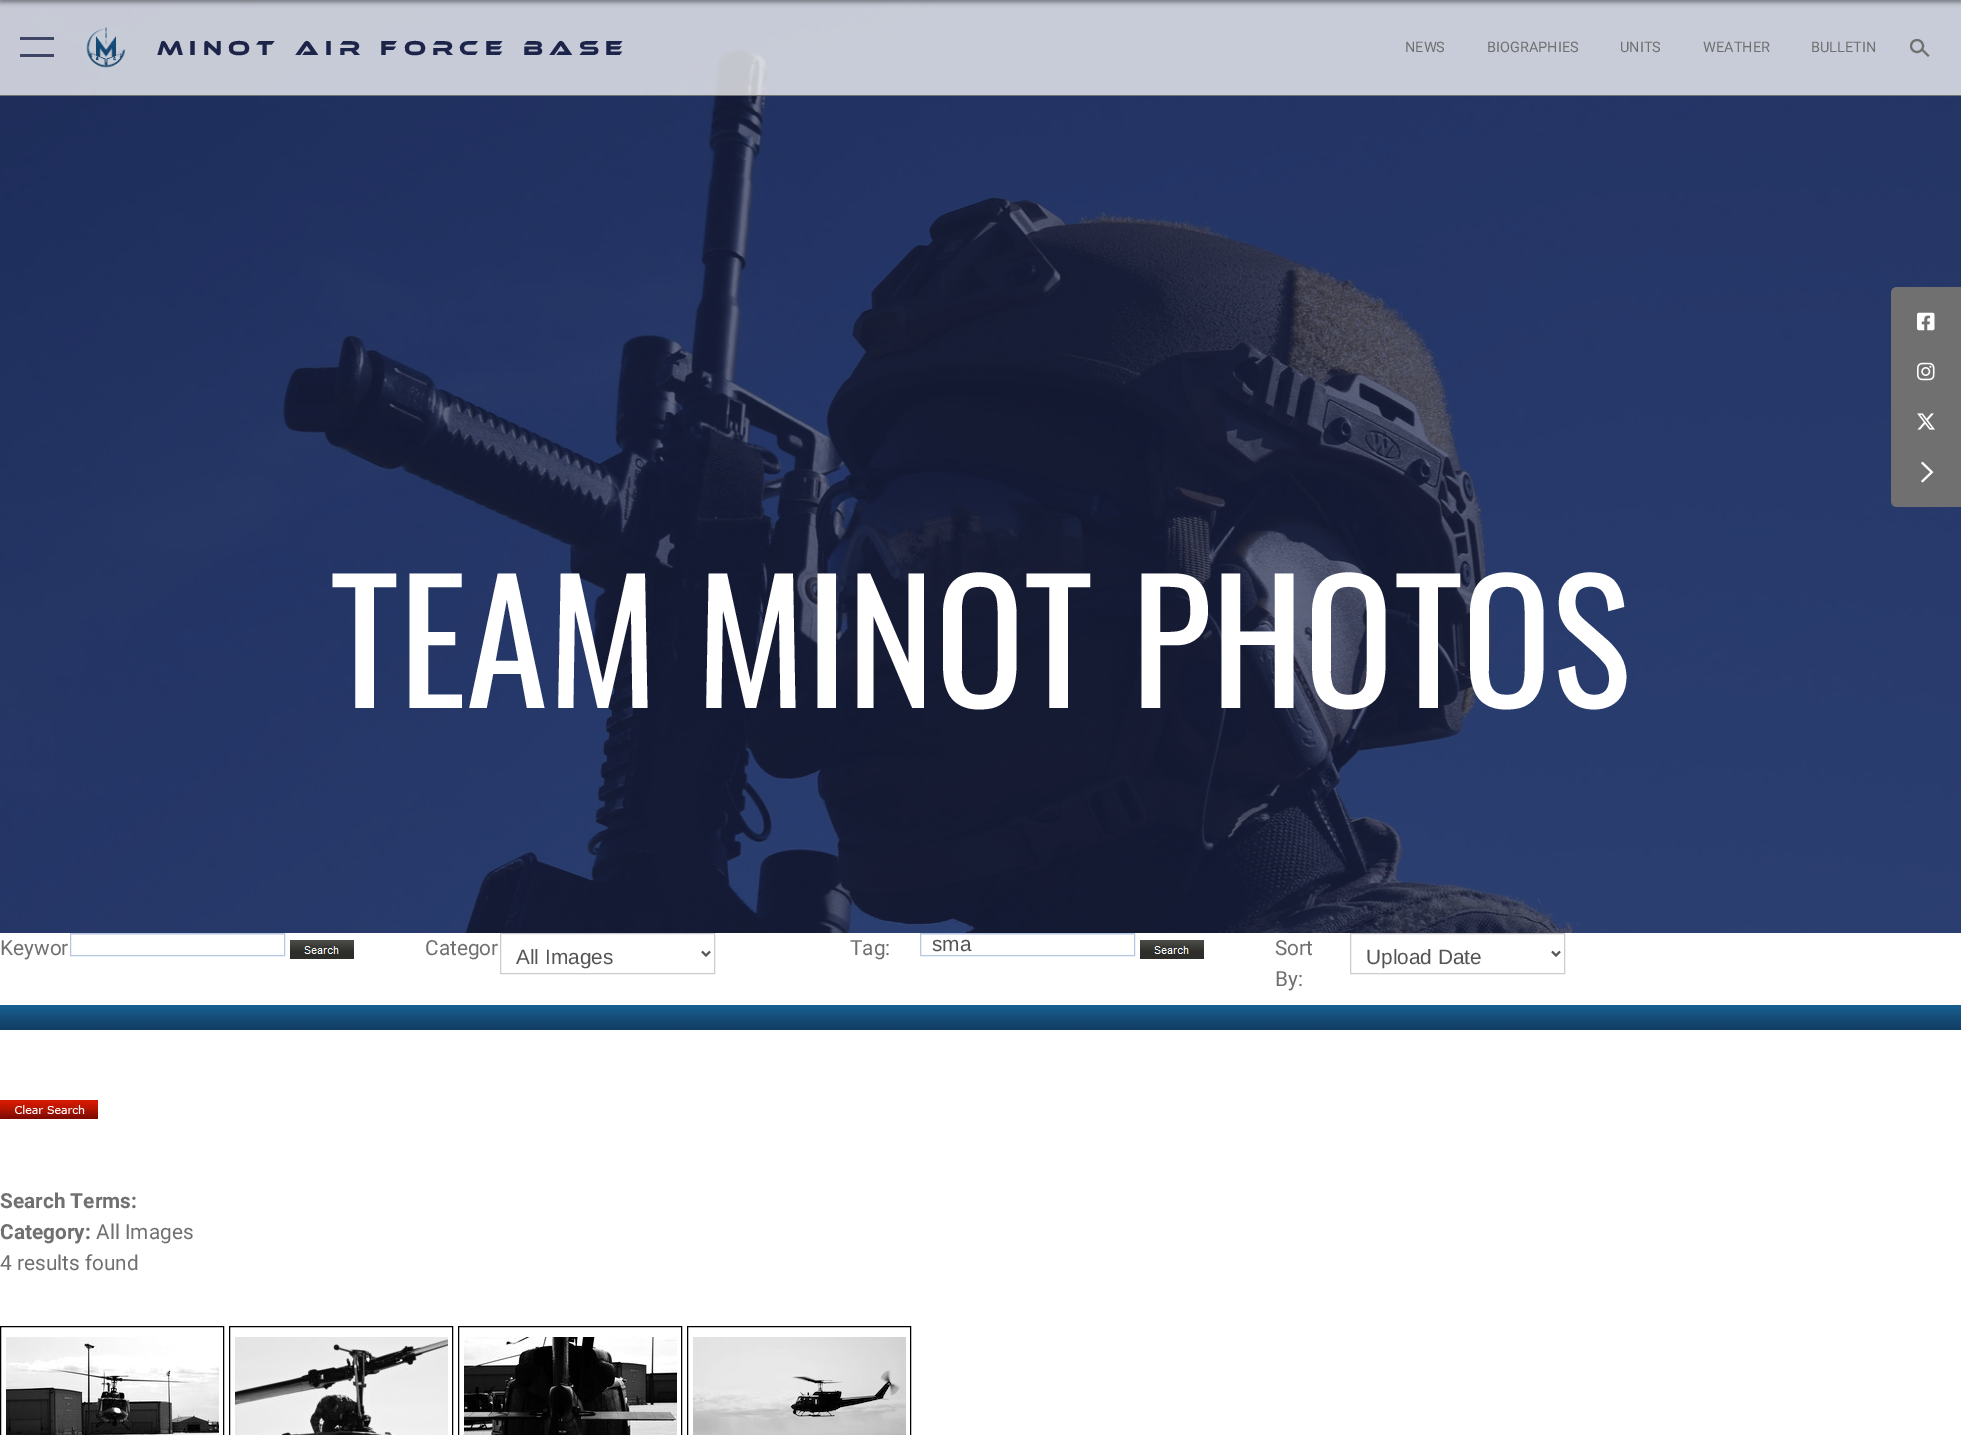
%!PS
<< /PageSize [1961 1435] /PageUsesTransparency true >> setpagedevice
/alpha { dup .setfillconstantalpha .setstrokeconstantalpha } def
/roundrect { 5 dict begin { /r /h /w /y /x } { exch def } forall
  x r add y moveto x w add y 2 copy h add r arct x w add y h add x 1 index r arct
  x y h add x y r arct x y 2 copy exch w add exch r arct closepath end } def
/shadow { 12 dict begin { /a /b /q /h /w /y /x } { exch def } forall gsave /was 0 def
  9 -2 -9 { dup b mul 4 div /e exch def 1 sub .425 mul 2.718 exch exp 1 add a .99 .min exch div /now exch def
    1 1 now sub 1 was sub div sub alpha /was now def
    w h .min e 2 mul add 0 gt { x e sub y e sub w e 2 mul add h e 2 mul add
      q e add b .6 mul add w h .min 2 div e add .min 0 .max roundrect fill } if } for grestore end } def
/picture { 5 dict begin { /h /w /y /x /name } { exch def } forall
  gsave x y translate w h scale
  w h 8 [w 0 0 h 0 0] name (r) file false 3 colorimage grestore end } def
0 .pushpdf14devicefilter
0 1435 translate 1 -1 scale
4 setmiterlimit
1 setgray
0 0 1961 1435 rectfill
(img6.rgb) 0 0 1961 933 picture
0.75 alpha
0 0 1961 95 rectfill
1 alpha
0 setgray
0 -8 1961 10 0 2.5 0.45 shadow
0.439 setgray
0 95 1961 1 rectfill
0.243 0.271 0.396 setrgbcolor
20 37 34 3 0.5 roundrect fill
20 54 34 3 0.5 roundrect fill
(img1.rgb) 86 27 40 41 picture
/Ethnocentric-Regular [20.8 0 0 -20.8 0 0] selectfont
0.11 0.141 0.286 setrgbcolor
157 55 moveto 6.25 0 (Minot Air Force Base) ashow
/Roboto-Regular [14.5 0 0 -14.5 0 0] selectfont
0.439 setgray
1405 52 moveto (NEWS) show
1487 52 moveto (BIOGRAPHIES) show
1620 52 moveto (UNITS) show
1703 52 moveto (WEATHER) show
1811 52 moveto (BULLETIN) show
2 setlinewidth
newpath 1917 46 6 0 360 arc closepath stroke
newpath 1922.5 48.5 moveto 1929.5 55.5 lineto 1928 57 lineto 1921 50 lineto closepath fill
newpath 1897 287 moveto 1961 287 lineto 1961 507 lineto 1897 507 lineto 1893.5 507 1891 504.5 1891 501 curveto 1891 293 lineto 1891 289.5 1893.5 287 1897 287 curveto closepath fill
(img2.rgb) 1917 312 18 19 picture
(img3.rgb) 1917 362 18 19 picture
(img4.rgb) 1917 413 18 17 picture
(img5.rgb) 1921 461 13 22 picture
/Oswald-Regular [166.25 0 0 -166.25 0 0] selectfont
1 setgray
330 708 moveto (TEAM MINOT PHOTOS) show
/Roboto-Regular [20.8 0 0 -20.8 0 0] selectfont
0.439 setgray
0 955 moveto (Keywor) show
0.925 setgray
71 934 213 1 rectfill
0.71 0.78 0.89 setrgbcolor
1 setlinewidth
70.5 933.5 214 22 rectstroke
(img7.rgb) 290 940 64 19 picture
0.439 setgray
425 955 moveto (Categor) show
0.8 setgray
500.5 933.5 214 40 rectstroke
0.333 setgray
2 setlinewidth
newpath 702 951.5 moveto 706 955.5 lineto 710 951.5 lineto stroke
/LiberationSans-Regular [20.8 0 0 -20.8 0 0] selectfont
516 964 moveto (All Images) show
/Roboto-Regular [20.8 0 0 -20.8 0 0] selectfont
0.439 setgray
850 955 moveto (Tag:) show
0.925 setgray
921 934 213 1 rectfill
0.71 0.78 0.89 setrgbcolor
1 setlinewidth
920.5 933.5 214 22 rectstroke
/LiberationSans-Regular [20.8 0 0 -20.8 0 0] selectfont
0.333 setgray
932 951 moveto (sma) show
(img7.rgb) 1140 940 64 19 picture
/Roboto-Regular [20.8 0 0 -20.8 0 0] selectfont
0.439 setgray
1275 955 moveto (Sort) show
1275 986 moveto (By:) show
0.8 setgray
1350.5 933.5 214 40 rectstroke
0.333 setgray
2 setlinewidth
newpath 1552 951.5 moveto 1556 955.5 lineto 1560 951.5 lineto stroke
/LiberationSans-Regular [20.8 0 0 -20.8 0 0] selectfont
1366 964 moveto (Upload Date) show
(img8.rgb) 0 1005 1961 25 picture
(img9.rgb) 0 1100 98 19 picture
/Roboto-Bold [20.8 0 0 -20.8 0 0] selectfont
0.439 setgray
0 1208 moveto (Search Terms:) show
0 1239 moveto (Category:) show
/Roboto-Regular [20.8 0 0 -20.8 0 0] selectfont
96 1239 moveto (All Images) show
0 1270 moveto (4 results found) show
0 setgray
1 setlinewidth
0.5 1326.5 223 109 rectstroke
(img10.rgb) 6 1337 213 98 picture
229.5 1326.5 223 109 rectstroke
(img11.rgb) 235 1337 213 98 picture
458.5 1326.5 223 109 rectstroke
(img12.rgb) 464 1337 213 98 picture
687.5 1326.5 223 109 rectstroke
(img13.rgb) 693 1337 213 98 picture
.poppdf14devicefilter showpage
